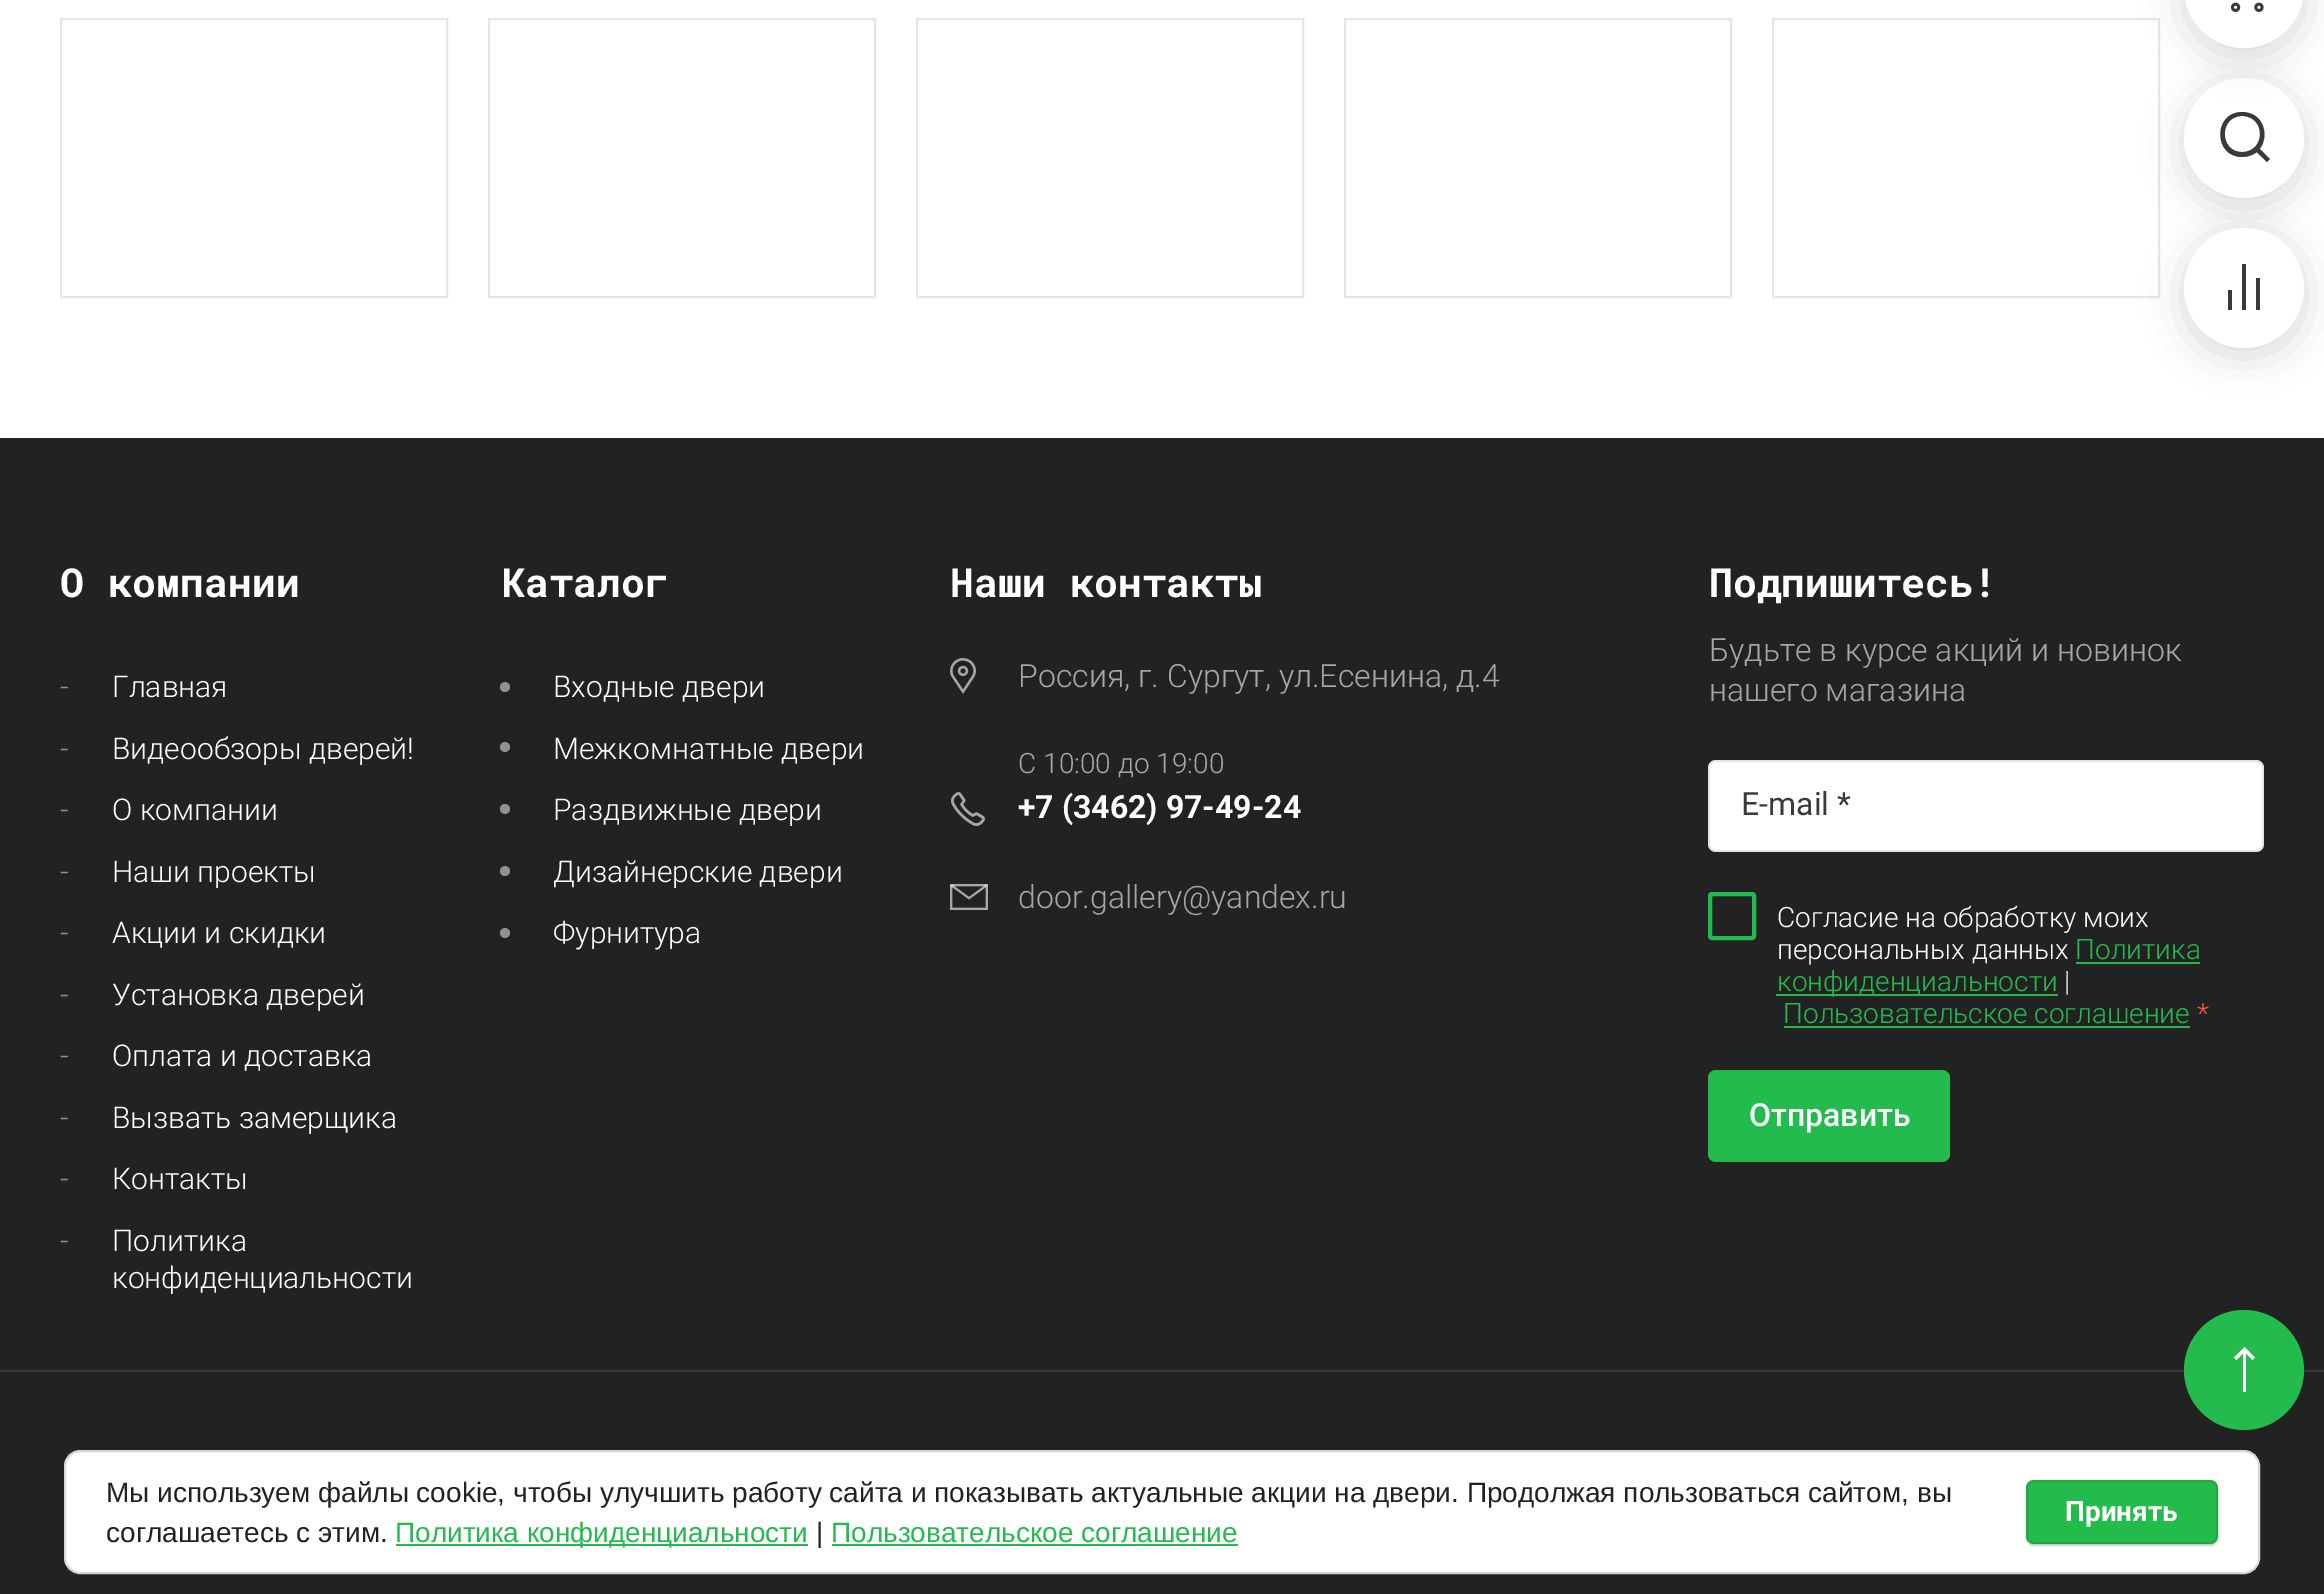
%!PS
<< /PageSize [2324 1594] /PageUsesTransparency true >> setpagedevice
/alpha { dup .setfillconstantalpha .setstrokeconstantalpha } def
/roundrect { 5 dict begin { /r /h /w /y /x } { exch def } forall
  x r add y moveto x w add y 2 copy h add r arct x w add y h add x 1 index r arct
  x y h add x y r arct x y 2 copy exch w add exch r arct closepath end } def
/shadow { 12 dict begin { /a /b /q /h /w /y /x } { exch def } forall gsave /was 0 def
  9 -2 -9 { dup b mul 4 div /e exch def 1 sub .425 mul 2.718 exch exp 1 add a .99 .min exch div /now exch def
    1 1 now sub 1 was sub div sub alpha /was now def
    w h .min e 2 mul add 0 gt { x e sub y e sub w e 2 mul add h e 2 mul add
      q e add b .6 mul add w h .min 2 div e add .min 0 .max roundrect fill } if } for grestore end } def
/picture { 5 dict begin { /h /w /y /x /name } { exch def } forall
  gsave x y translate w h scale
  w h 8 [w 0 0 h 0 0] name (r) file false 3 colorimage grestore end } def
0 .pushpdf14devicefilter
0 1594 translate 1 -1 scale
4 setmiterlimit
1 setgray
0 0 2324 1594 rectfill
0.902 setgray
2 setlinewidth
61 19 386 278 rectstroke
489 19 386 278 rectstroke
917 19 386 278 rectstroke
1345 19 386 278 rectstroke
1773 19 386 278 rectstroke
0 setgray
2184 86 120 120 60 20 0.15 shadow
1 setgray
newpath 2244 138 60 0 360 arc closepath fill
0.227 setgray
newpath 2242 157 moveto 2213 157 2213 112 2242 112 curveto 2272 112 2272 157 2242 157 curveto closepath 2242 116 moveto 2219 116 2219 152 2242 152 curveto 2266 152 2266 116 2242 116 curveto closepath fill
0 setgray
2184 -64 120 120 60 20 0.15 shadow
1 setgray
2184 -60 120 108 60 roundrect fill
(img1.rgb) 2230 2 34 10 picture
0.227 setgray
newpath 2270 159 moveto 2257 146 lineto 2254 149.5 lineto 2267 162 lineto closepath fill
0 setgray
2184 236 120 120 60 20 0.15 shadow
1 setgray
newpath 2244 288 60 0 360 arc closepath fill
0.227 setgray
newpath 2256 278 moveto 2260 278 lineto 2260 310 lineto 2256 310 lineto closepath 2242 264 moveto 2246 264 lineto 2246 310 lineto 2242 310 lineto closepath 2228 290 moveto 2232 290 lineto 2232 310 lineto 2228 310 lineto closepath fill
0.133 setgray
0 438 2324 1156 rectfill
0.22 setgray
0 1370 2324 2 rectfill
/RobotoMono-Bold [40 0 0 -40 0 0] selectfont
1 setgray
60 597 moveto (О компании) show
/Roboto-Light [30 0 0 -30 0 0] selectfont
0.569 setgray
60 697 moveto (-) show
1 setgray
112 697 moveto (Главная) show
0.569 setgray
60 759 moveto (-) show
1 setgray
112 759 moveto (Видеообзоры дверей!) show
0.569 setgray
60 820 moveto (-) show
1 setgray
112 820 moveto (О компании) show
0.569 setgray
60 882 moveto (-) show
1 setgray
112 882 moveto (Наши проекты) show
0.569 setgray
60 943 moveto (-) show
1 setgray
112 943 moveto (Акции и скидки) show
0.569 setgray
60 1005 moveto (-) show
1 setgray
112 1005 moveto (Установка дверей) show
0.569 setgray
60 1066 moveto (-) show
1 setgray
112 1066 moveto (Оплата и доставка) show
0.569 setgray
60 1128 moveto (-) show
1 setgray
112 1128 moveto (Вызвать замерщика) show
0.569 setgray
60 1189 moveto (-) show
1 setgray
112 1189 moveto (Контакты) show
0.569 setgray
60 1251 moveto (-) show
1 setgray
112 1251 moveto (Политика) show
112 1288 moveto (конфиденциальности) show
/RobotoMono-Bold [40 0 0 -40 0 0] selectfont
501 597 moveto (Каталог) show
0.569 setgray
newpath 505 687 5 0 360 arc closepath fill
/Roboto-Light [30 0 0 -30 0 0] selectfont
1 setgray
553 697 moveto (Входные двери) show
0.569 setgray
newpath 505 747 5 0 360 arc closepath fill
1 setgray
553 759 moveto (Межкомнатные двери) show
0.569 setgray
newpath 505 809 5 0 360 arc closepath fill
1 setgray
553 820 moveto (Раздвижные двери) show
0.569 setgray
newpath 505 871 5 0 360 arc closepath fill
1 setgray
553 882 moveto (Дизайнерские двери) show
0.569 setgray
newpath 505 933 5 0 360 arc closepath fill
1 setgray
553 943 moveto (Фурнитура) show
/RobotoMono-Bold [40 0 0 -40 0 0] selectfont
950 597 moveto (Наши контакты) show
(img2.rgb) 950 658 26 36 picture
/Roboto-Light [32 0 0 -32 0 0] selectfont
0.655 setgray
1018 687 moveto (Россия, г. Сургут, ул.Есенина, д.4) show
/Roboto-Light [28 0 0 -28 0 0] selectfont
1018 773 moveto (C 10:00 до 19:00) show
(img3.rgb) 951 792 34 34 picture
/Roboto-Bold [32 0 0 -32 0 0] selectfont
1 setgray
1018 818 moveto (+7 \(3462\) 97-49-24) show
(img4.rgb) 950 884 38 26 picture
/Roboto-Light [32 0 0 -32 0 0] selectfont
0.655 setgray
1018 908 moveto (door.gallery@yandex.ru) show
/RobotoMono-Bold [40 0 0 -40 0 0] selectfont
1 setgray
1709 597 moveto (Подпишитесь!) show
/Roboto-Light [32 0 0 -32 0 0] selectfont
0.655 setgray
1709 661 moveto (Будьте в курсе акций и новинок) show
1709 701 moveto (нашего магазина) show
1 setgray
1708 760 556 92 8 roundrect fill
0.1 alpha
0 setgray
1709 761 554 90 7 roundrect stroke
/Roboto-Regular [32 0 0 -32 0 0] selectfont
1 alpha
0.227 setgray
1741 815 moveto (E-mail *) show
0.141 0.733 0.306 setrgbcolor
4 setlinewidth
1710 894 44 44 2 roundrect stroke
/Roboto-Light [28 0 0 -28 0 0] selectfont
1 setgray
1777 927 moveto (Согласие на обработку моих) show
1777 959 moveto (персональных данных) show
0.141 0.733 0.306 setrgbcolor
2075 959 moveto (Политика) show
2076 962 124 2 rectfill
1776 994 282 2 rectfill
1777 991 moveto (конфиденциальности) show
1 setgray
2064 991 moveto (|) show
0.141 0.733 0.306 setrgbcolor
1783 1023 moveto (Пользовательское соглашение) show
1784 1026 406 2 rectfill
1 0.337 0.251 setrgbcolor
2197 1023 moveto (*) show
0.141 0.733 0.306 setrgbcolor
1708 1070 242 92 8 roundrect fill
/Roboto-Medium [32 0 0 -32 0 0] selectfont
1 setgray
1749 1126 moveto (Отправить) show
0.141 0.733 0.306 setrgbcolor
newpath 2244 1370 60 0 360 arc closepath fill
1 setgray
newpath 2252.5 1360 moveto 2244.5 1352 lineto 2236.5 1360 lineto 2234 1357.5 lineto 2244.5 1347 lineto 2255 1357.5 lineto closepath fill
2243 1350 3 42 rectfill
65 1451 2194 122 15 roundrect gsave fill grestore
0.839 setgray
2 setlinewidth
stroke
/LiberationSans-Regular [28 0 0 -28 0 0] selectfont
0.129 setgray
106 1502 moveto (Мы используем файлы cookie, чтобы улучшить работу сайта и показывать актуальные акции на двери. Продолжая пользоваться сайтом, вы) show
106 1542 moveto (соглашаетесь с этим.) show
0.141 0.733 0.306 setrgbcolor
396 1544 412 2 rectfill
395 1542 moveto (Политика конфиденциальности) show
0.129 setgray
816 1542 moveto (|) show
0.141 0.733 0.306 setrgbcolor
831 1542 moveto (Пользовательское соглашение) show
832 1544 406 2 rectfill
0 setgray
2026 1482 192 64 8 1 0.2 shadow
0.141 0.733 0.302 setrgbcolor
2026 1480 192 64 8 roundrect fill
0.1 alpha
0 setgray
2027 1481 190 62 7 roundrect stroke
/Roboto-Bold [28 0 0 -28 0 0] selectfont
1 alpha
1 setgray
2065 1521 moveto (Принять) show
.poppdf14devicefilter showpage
